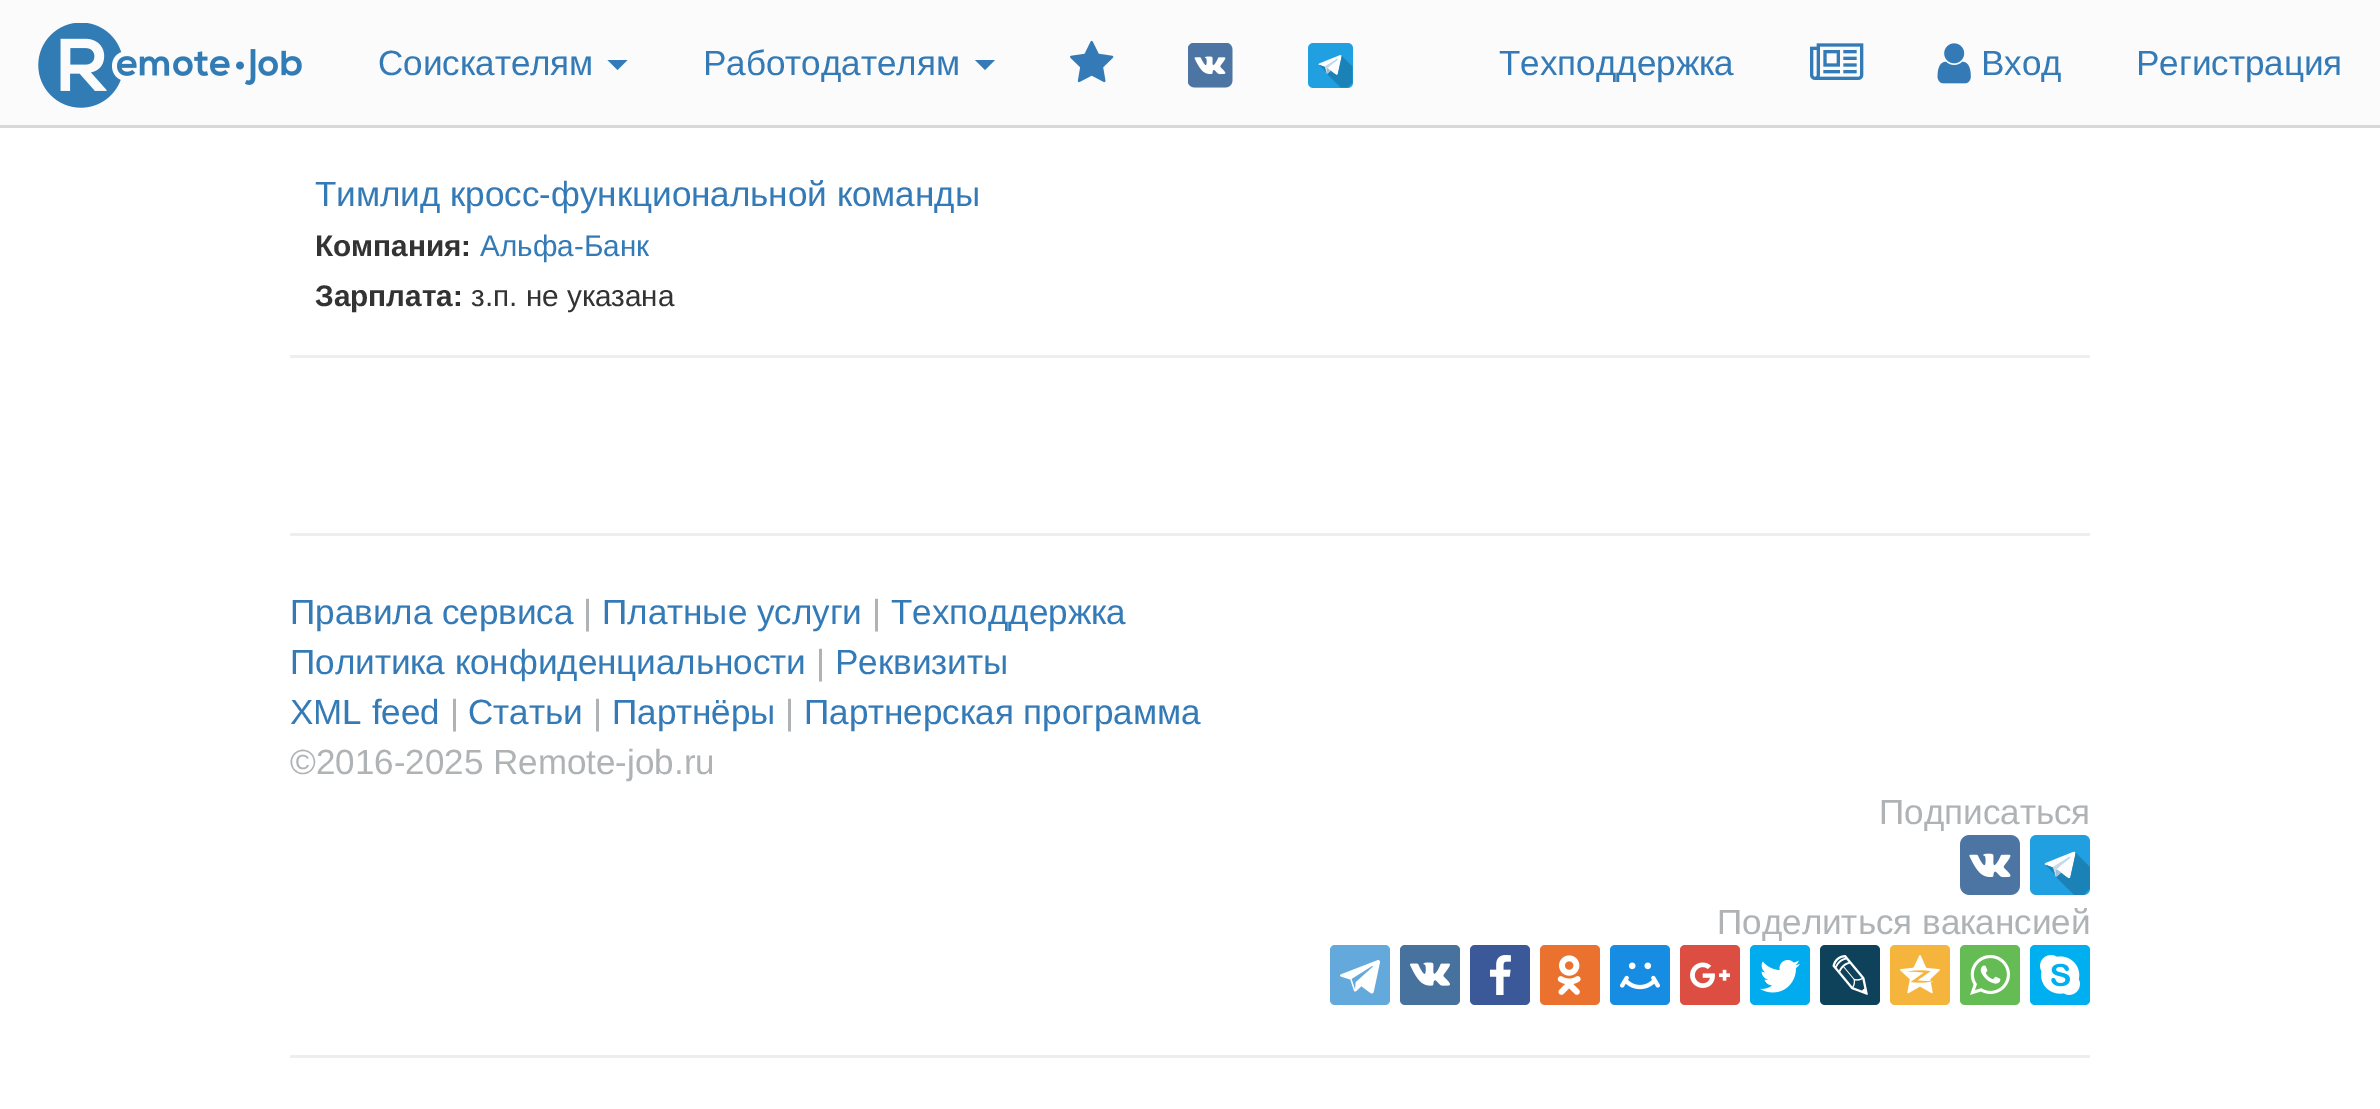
%!PS
<< /PageSize [2380 1109] >> setpagedevice
/roundrect { 5 dict begin { /r /h /w /y /x } { exch def } forall
  x r add y moveto x w add y 2 copy h add r arct x w add y h add x 1 index r arct
  x y h add x y r arct x y 2 copy exch w add exch r arct closepath end } def
/picture { 5 dict begin { /h /w /y /x /name } { exch def } forall
  gsave x y translate w h scale
  w h 8 [w 0 0 h 0 0] name (r) file false 3 colorimage grestore end } def
0 1109 translate 1 -1 scale
4 setmiterlimit
1 setgray
0 0 2380 1109 rectfill
0.984 setgray
0 0 2380 125 rectfill
0.847 setgray
0 125 2380 3 rectfill
(img1.rgb) 38 23 264 85 picture
/LiberationSans-Regular [35 0 0 -35 0 0] selectfont
0.2 0.478 0.718 setrgbcolor
378 75 moveto (Соискателям) show
newpath 607.5 60 moveto 627.5 60 lineto 617.5 70 lineto closepath fill
703 75 moveto (Работодателям) show
newpath 975 60 moveto 995 60 lineto 985 70 lineto closepath fill
(img2.rgb) 1070 40 44 43 picture
(img3.rgb) 1188 43 45 45 picture
(img4.rgb) 1308 43 45 45 picture
1499 75 moveto (Техподдержка) show
(img5.rgb) 1810 43 54 37 picture
(img6.rgb) 1937 43 34 41 picture
1981 75 moveto (Вход) show
2136 75 moveto (Регистрация) show
315 206 moveto (Тимлид кросс-функциональной команды) show
/LiberationSans-Bold [29.75 0 0 -29.75 0 0] selectfont
0.2 setgray
315 256 moveto (Компания:) show
/LiberationSans-Regular [29.75 0 0 -29.75 0 0] selectfont
0.2 0.478 0.718 setrgbcolor
480 256 moveto (Альфа-Банк) show
/LiberationSans-Bold [29.75 0 0 -29.75 0 0] selectfont
0.2 setgray
315 306 moveto (Зарплата:) show
/LiberationSans-Regular [29.75 0 0 -29.75 0 0] selectfont
471 306 moveto (з.п. не указана) show
0.933 setgray
290 355 1800 3 rectfill
290 533 1800 3 rectfill
/LiberationSans-Regular [35 0 0 -35 0 0] selectfont
0.2 0.478 0.718 setrgbcolor
290 624 moveto (Правила сервиса) show
0.686 0.702 0.71 setrgbcolor
583 624 moveto (|) show
0.2 0.478 0.718 setrgbcolor
602 624 moveto (Платные услуги) show
0.686 0.702 0.71 setrgbcolor
872 624 moveto (|) show
0.2 0.478 0.718 setrgbcolor
891 624 moveto (Техподдержка) show
290 674 moveto (Политика конфиденциальности) show
0.686 0.702 0.71 setrgbcolor
816 674 moveto (|) show
0.2 0.478 0.718 setrgbcolor
835 674 moveto (Реквизиты) show
290 724 moveto (XML feed) show
0.686 0.702 0.71 setrgbcolor
450 724 moveto (|) show
0.2 0.478 0.718 setrgbcolor
468 724 moveto (Статьи) show
0.686 0.702 0.71 setrgbcolor
593 724 moveto (|) show
0.2 0.478 0.718 setrgbcolor
612 724 moveto (Партнёры) show
0.686 0.702 0.71 setrgbcolor
785 724 moveto (|) show
0.2 0.478 0.718 setrgbcolor
804 724 moveto (Партнерская программа) show
0.686 0.702 0.71 setrgbcolor
290 774 moveto (©2016-2025 Remote-job.ru) show
1879 824 moveto (Подписаться) show
(img7.rgb) 1960 835 60 60 picture
(img8.rgb) 2030 835 60 60 picture
1717 934 moveto (Поделиться вакансией) show
0.392 0.663 0.863 setrgbcolor
1330 945 60 60 5 roundrect fill
(img9.rgb) 1340 960 40 34 picture
0.282 0.447 0.62 setrgbcolor
1400 945 60 60 5 roundrect fill
(img10.rgb) 1410 962 40 24 picture
0.231 0.349 0.596 setrgbcolor
1470 945 60 60 5 roundrect fill
(img11.rgb) 1490 955 21 40 picture
0.922 0.447 0.18 setrgbcolor
1540 945 60 60 5 roundrect fill
(img12.rgb) 1557 955 24 40 picture
0.086 0.553 0.886 setrgbcolor
1610 945 60 60 5 roundrect fill
(img13.rgb) 1620 962 40 28 picture
0.863 0.306 0.255 setrgbcolor
1680 945 60 60 5 roundrect fill
(img14.rgb) 1690 962 40 26 picture
0 0.675 0.929 setrgbcolor
1750 945 60 60 5 roundrect fill
(img15.rgb) 1760 960 40 33 picture
0.051 0.259 0.353 setrgbcolor
1820 945 60 60 5 roundrect fill
(img16.rgb) 1832 955 36 40 picture
0.961 0.71 0.235 setrgbcolor
1890 945 60 60 5 roundrect fill
(img17.rgb) 1900 955 40 39 picture
0.396 0.737 0.329 setrgbcolor
1960 945 60 60 5 roundrect fill
(img18.rgb) 1970 955 40 40 picture
0 0.686 0.941 setrgbcolor
2030 945 60 60 5 roundrect fill
(img19.rgb) 2040 955 40 40 picture
0.933 setgray
290 1055 1800 3 rectfill
showpage
